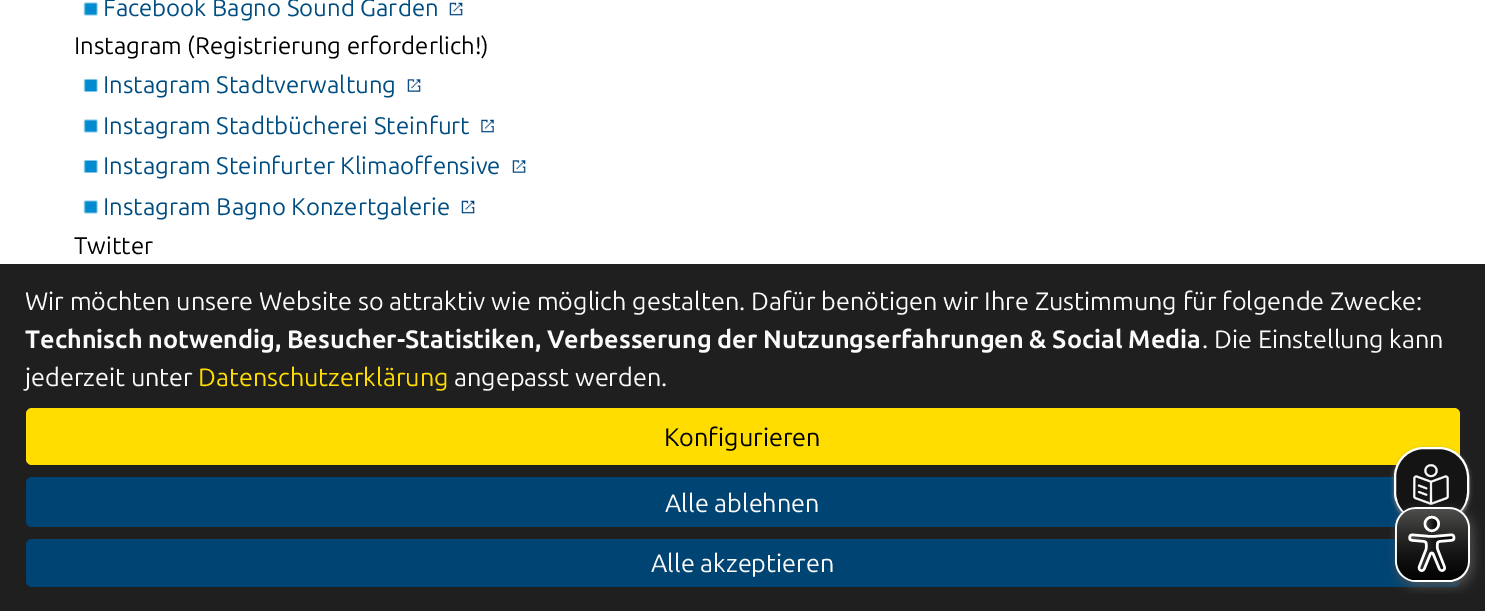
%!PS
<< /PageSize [1485 611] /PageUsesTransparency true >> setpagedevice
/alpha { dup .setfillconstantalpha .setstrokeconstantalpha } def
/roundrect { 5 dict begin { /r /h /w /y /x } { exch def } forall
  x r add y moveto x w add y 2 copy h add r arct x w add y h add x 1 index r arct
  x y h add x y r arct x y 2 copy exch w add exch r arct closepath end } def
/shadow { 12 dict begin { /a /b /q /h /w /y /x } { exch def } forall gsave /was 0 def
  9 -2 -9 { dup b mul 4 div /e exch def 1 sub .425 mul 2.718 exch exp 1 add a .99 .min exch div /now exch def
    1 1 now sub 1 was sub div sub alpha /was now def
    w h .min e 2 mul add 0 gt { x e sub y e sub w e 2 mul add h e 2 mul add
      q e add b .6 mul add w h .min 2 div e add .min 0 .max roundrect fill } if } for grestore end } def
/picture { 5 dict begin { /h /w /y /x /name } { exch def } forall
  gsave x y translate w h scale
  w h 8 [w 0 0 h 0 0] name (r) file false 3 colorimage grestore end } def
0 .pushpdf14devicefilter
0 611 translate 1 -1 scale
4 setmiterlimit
1 setgray
0 0 1485 611 rectfill
(img1.rgb) 83 2 15 14 picture
/Ubuntu-Regular [24 0 0 -24 0 0] selectfont
0 0.306 0.506 setrgbcolor
103 16 moveto (Facebook Bagno Sound Garden) show
(img2.rgb) 449 2 14 14 picture
0 setgray
74 54 moveto (Instagram \(Registrierung erforderlich!\)) show
(img3.rgb) 83 79 15 13 picture
0 0.306 0.506 setrgbcolor
103 93 moveto (Instagram Stadtverwaltung) show
(img4.rgb) 407 79 14 13 picture
(img1.rgb) 83 119 15 14 picture
103 134 moveto (Instagram Stadtbücherei Steinfurt) show
(img5.rgb) 481 119 13 14 picture
(img3.rgb) 83 160 15 13 picture
103 174 moveto (Instagram Steinfurter Klimaoffensive) show
(img6.rgb) 512 160 14 13 picture
(img1.rgb) 83 200 15 14 picture
103 215 moveto (Instagram Bagno Konzertgalerie) show
(img2.rgb) 461 200 14 14 picture
0 setgray
74 254 moveto (Twitter) show
0.122 setgray
0 264 1485 347 rectfill
/Ubuntu-Regular [25.2 0 0 -25.2 0 0] selectfont
0.98 setgray
25 310 moveto (Wir möchten unsere Website so attraktiv wie möglich gestalten. Dafür benötigen wir Ihre Zustimmung für folgende Zwecke:) show
/Ubuntu-Bold [25.2 0 0 -25.2 0 0] selectfont
25 348 moveto -0.25 0 32 (Technisch notwendig, Besucher-Statistiken, Verbesserung der Nutzungserfahrungen & Social Media) widthshow
/Ubuntu-Regular [25.2 0 0 -25.2 0 0] selectfont
1202 348 moveto (. Die Einstellung kann) show
25 386 moveto (jederzeit unter) show
1 0.867 0 setrgbcolor
198 386 moveto (Datenschutzerklärung) show
0.98 setgray
454 386 moveto (angepasst werden.) show
1 0.867 0 setrgbcolor
26 408 1434 57 6 roundrect fill
0 setgray
664 446 moveto (Konfigurieren) show
0 0.267 0.451 setrgbcolor
26 477 1434 50 6 roundrect fill
0.98 setgray
665 512 moveto (Alle ablehnen) show
0 0.267 0.451 setrgbcolor
26 539 1434 48 6 roundrect fill
0.98 setgray
651 572 moveto (Alle akzeptieren) show
0.518 setgray
1394 449 75 75 30 2 1 shadow
0.082 0.078 0.078 setrgbcolor
1395 448 73 73 29 roundrect gsave fill grestore
1 setgray
2 setlinewidth
stroke
(img7.rgb) 1413 464 36 41 picture
(img8.rgb) 1389 501 92 93 picture
.poppdf14devicefilter showpage
